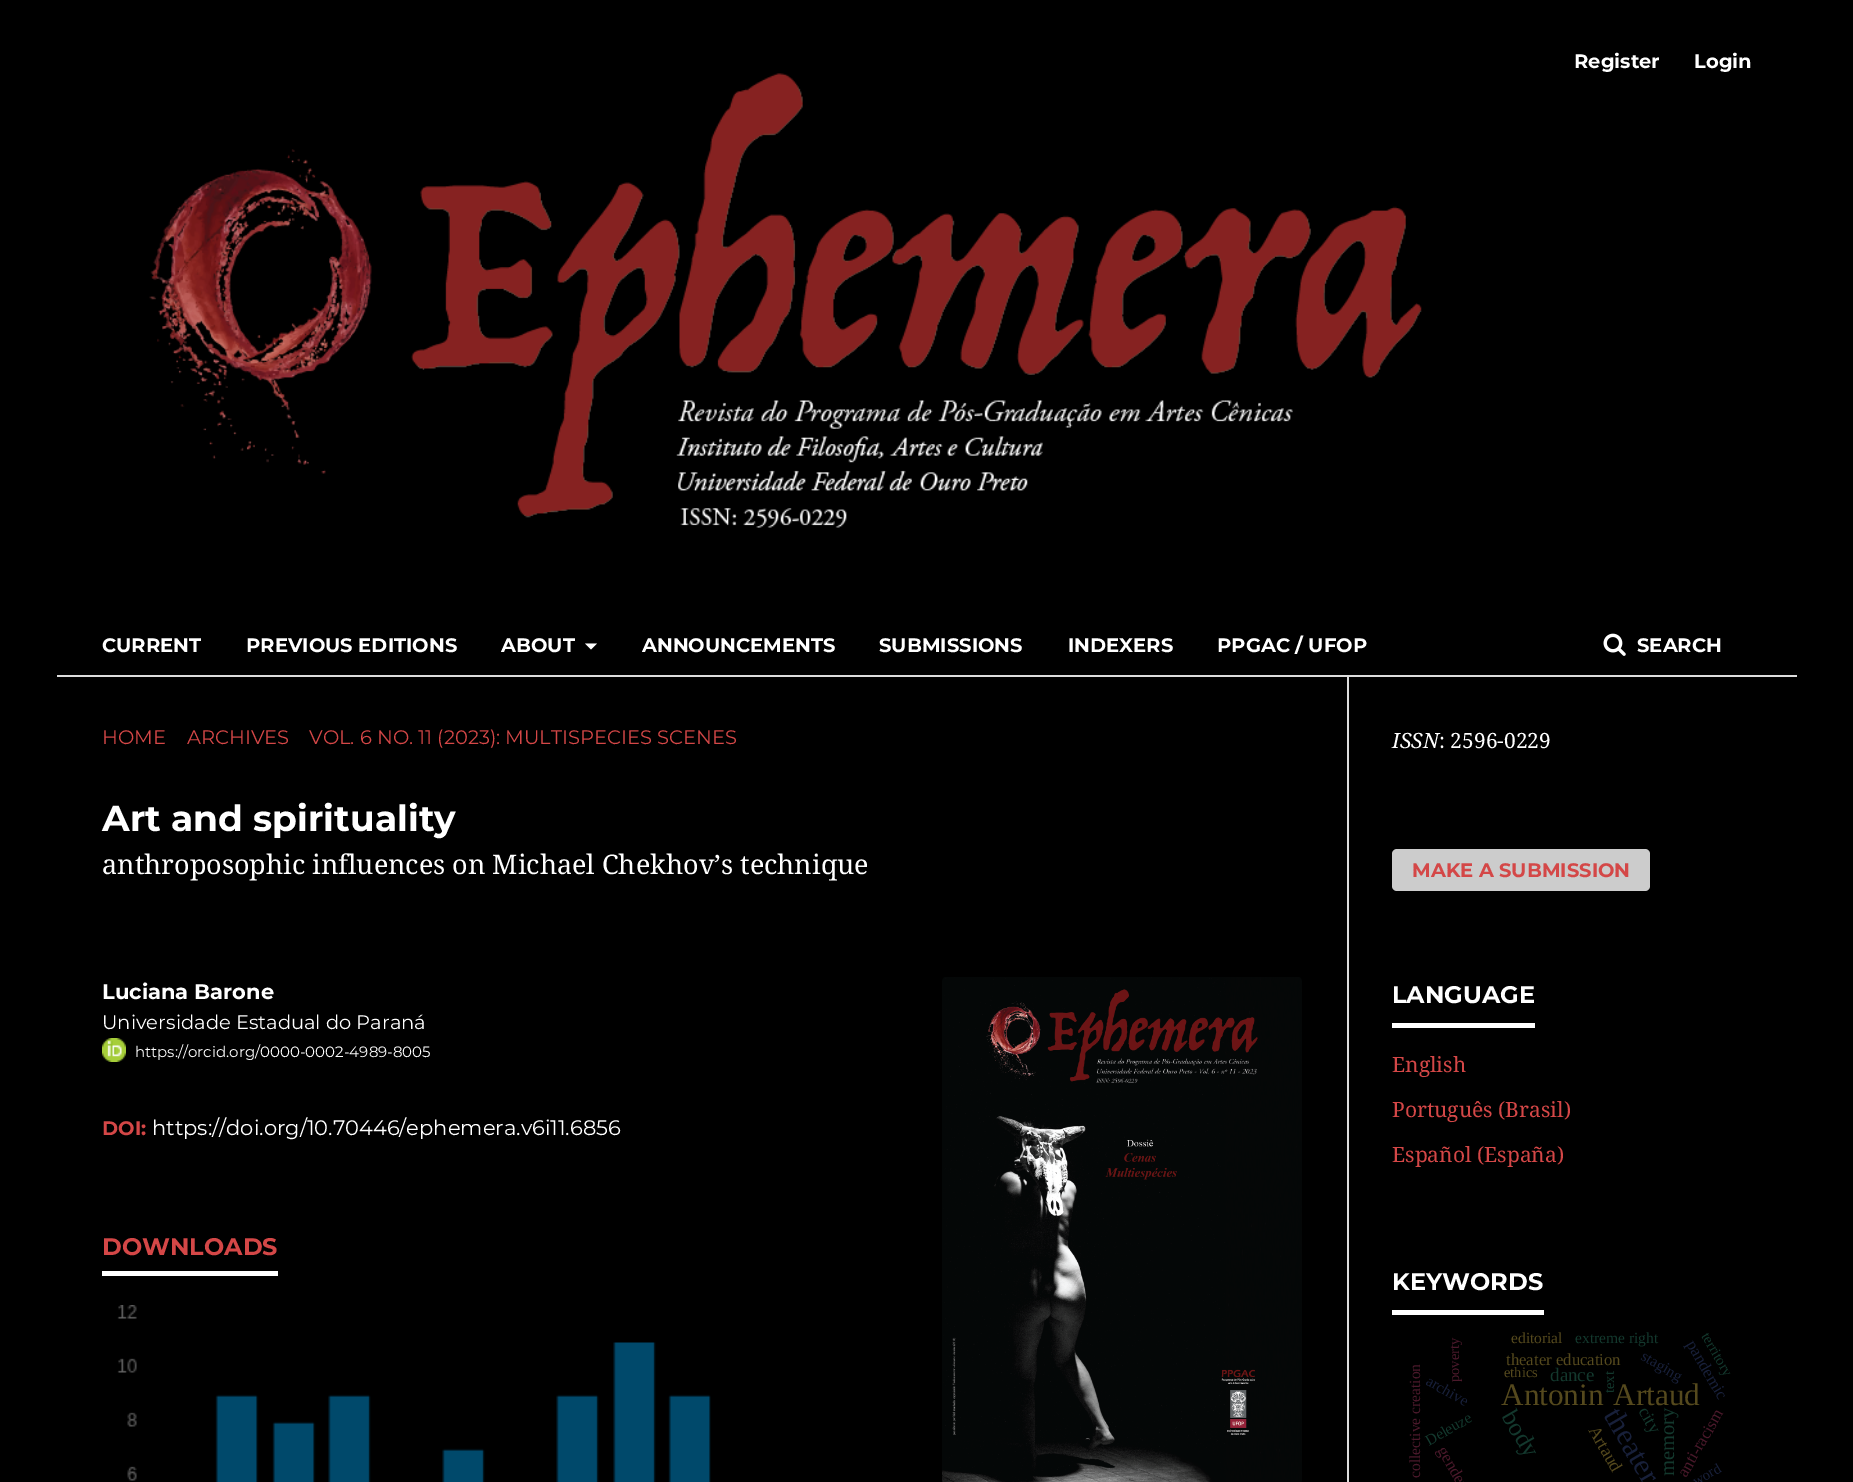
%!PS
<< /PageSize [1853 1482] >> setpagedevice
/roundrect { 5 dict begin { /r /h /w /y /x } { exch def } forall
  x r add y moveto x w add y 2 copy h add r arct x w add y h add x 1 index r arct
  x y h add x y r arct x y 2 copy exch w add exch r arct closepath end } def
/picture { 5 dict begin { /h /w /y /x /name } { exch def } forall
  gsave x y translate w h scale
  w h 8 [w 0 0 h 0 0] name (r) file false 3 colorimage grestore end } def
0 1482 translate 1 -1 scale
4 setmiterlimit
0 setgray
0 0 1853 1482 rectfill
0.867 setgray
57 675 1740 2 rectfill
/Montserrat-Bold [19.5 0 0 -19.5 0 0] selectfont
1 setgray
1574 68 moveto (Register) show
1694 68 moveto (Login) show
(img1.rgb) 149 73 1273 455 picture
102 652 moveto (CURRENT) show
246 652 moveto (PREVIOUS EDITIONS) show
501 652 moveto (ABOUT) show
newpath 585 643.5 moveto 597 643.5 lineto 591 649.5 lineto closepath fill
642 652 moveto (ANNOUNCEMENTS) show
879 652 moveto (SUBMISSIONS) show
1068 652 moveto (INDEXERS) show
1217 652 moveto (PPGAC / UFOP) show
(img2.rgb) 1603 633 23 23 picture
1637 652 moveto (SEARCH) show
/Montserrat-Regular [19.5 0 0 -19.5 0 0] selectfont
0.831 0.278 0.278 setrgbcolor
102 744 moveto (HOME) show
187 744 moveto (ARCHIVES) show
309 744 moveto (VOL. 6 NO. 11 \(2023\): MULTISPECIES SCENES) show
/Montserrat-Bold [36 0 0 -36 0 0] selectfont
1 setgray
102 831 moveto (Art and spirituality) show
/NotoSerif-Regular [27 0 0 -27 0 0] selectfont
102 874 moveto (anthroposophic influences on Michael Chekhov’s technique) show
/Montserrat-Bold [21 0 0 -21 0 0] selectfont
102 999 moveto (Luciana Barone) show
/Montserrat-Regular [19.5 0 0 -19.5 0 0] selectfont
102 1029 moveto (Universidade Estadual do Paraná) show
(img3.rgb) 102 1038 24 24 picture
/Montserrat-Regular [15 0 0 -15 0 0] selectfont
135 1057 moveto (https://orcid.org/0000-0002-4989-8005) show
/Montserrat-Bold [19.5 0 0 -19.5 0 0] selectfont
0.831 0.278 0.278 setrgbcolor
102 1135 moveto (DOI:) show
/Montserrat-Regular [21 0 0 -21 0 0] selectfont
1 setgray
152 1135 moveto (https://doi.org/10.70446/ephemera.v6i11.6856) show
102 1271 176 5 rectfill
/Montserrat-Bold [24 0 0 -24 0 0] selectfont
0.831 0.278 0.278 setrgbcolor
102 1255 moveto (DOWNLOADS) show
(img4.rgb) 117 1305 594 177 picture
(img5.rgb) 942 977 360 505 picture
0.867 setgray
1347 677 2 805 rectfill
/NotoSerif-Italic [21 0 0 -21 0 0] selectfont
1 setgray
1392 748 moveto (ISSN) show
/NotoSerif-Regular [21 0 0 -21 0 0] selectfont
1439 748 moveto (: 2596-0229) show
0.8 setgray
1392 849 258 42 5 roundrect fill
/Montserrat-Bold [19.5 0 0 -19.5 0 0] selectfont
0.831 0.278 0.278 setrgbcolor
1412 877 moveto (MAKE A SUBMISSION) show
1 setgray
1392 1023 143 5 rectfill
/Montserrat-Bold [24 0 0 -24 0 0] selectfont
1392 1003 moveto (LANGUAGE) show
/NotoSerif-Regular [21 0 0 -21 0 0] selectfont
0.831 0.278 0.278 setrgbcolor
1392 1072 moveto (English) show
1392 1117 moveto (Português \(Brasil\)) show
1392 1162 moveto (Español \(España\)) show
1 setgray
1392 1310 152 5 rectfill
/Montserrat-Bold [24 0 0 -24 0 0] selectfont
1392 1290 moveto (KEYWORDS) show
/LiberationSerif-Regular [14.5 0 0 -14.5 0 0] selectfont
0.294 0.098 0.169 setrgbcolor
gsave 1459 1382 translate -90 rotate 0 0 moveto (poverty) show grestore
/LiberationSerif-Regular [15.5 0 0 -15.5 0 0] selectfont
0.333 0.286 0.114 setrgbcolor
1511 1343 moveto (editorial) show
0.075 0.22 0.176 setrgbcolor
1575 1343 moveto (extreme right) show
/LiberationSerif-Regular [31.25 0 0 -31.25 0 0] selectfont
0.333 0.286 0.114 setrgbcolor
1501 1405 moveto 2 0 32 (Antonin Artaud) widthshow
/LiberationSerif-Regular [16.75 0 0 -16.75 0 0] selectfont
0.094 0.125 0.227 setrgbcolor
gsave 1686 1344 translate 60 rotate 0 0 moveto (pandemic) show grestore
/LiberationSerif-Regular [14.5 0 0 -14.5 0 0] selectfont
0.075 0.22 0.176 setrgbcolor
gsave 1701 1336 translate 60 rotate 0 0 moveto (territory) show grestore
/LiberationSerif-Regular [15.5 0 0 -15.5 0 0] selectfont
0.294 0.098 0.169 setrgbcolor
gsave 1420 1478 translate -90 rotate 0 0 moveto (collective creation) show grestore
/LiberationSerif-Regular [16.75 0 0 -16.75 0 0] selectfont
0.333 0.286 0.114 setrgbcolor
1506 1365 moveto (theater education) show
/LiberationSerif-Regular [15.5 0 0 -15.5 0 0] selectfont
0.094 0.125 0.227 setrgbcolor
gsave 1640 1359 translate 30 rotate 0 0 moveto (staging) show grestore
gsave 1425 1384 translate 30 rotate 0 0 moveto (archive) show grestore
/LiberationSerif-Regular [14.5 0 0 -14.5 0 0] selectfont
0.333 0.286 0.114 setrgbcolor
1504 1377 moveto (ethics) show
/LiberationSerif-Regular [19 0 0 -19 0 0] selectfont
0.075 0.22 0.176 setrgbcolor
1550 1381 moveto (dance) show
/LiberationSerif-Regular [14.5 0 0 -14.5 0 0] selectfont
gsave 1614 1393 translate -90 rotate 0 0 moveto (text) show grestore
/LiberationSerif-Regular [25 0 0 -25 0 0] selectfont
gsave 1501 1416 translate 60 rotate 0 0 moveto (body) show grestore
/LiberationSerif-Regular [30 0 0 -30 0 0] selectfont
0.094 0.125 0.227 setrgbcolor
gsave 1603 1415 translate 60 rotate 0 0 moveto (theater) show grestore
/LiberationSerif-Regular [15.5 0 0 -15.5 0 0] selectfont
0.075 0.22 0.176 setrgbcolor
gsave 1429 1446 translate -30 rotate 0 0 moveto (Deleuze) show grestore
/LiberationSerif-Regular [18 0 0 -18 0 0] selectfont
0.333 0.286 0.114 setrgbcolor
gsave 1588 1430 translate 60 rotate 0 0 moveto (Artaud) show grestore
0.075 0.22 0.176 setrgbcolor
gsave 1638 1411 translate 60 rotate 0 0 moveto (city) show grestore
/LiberationSerif-Regular [20.5 0 0 -20.5 0 0] selectfont
gsave 1674 1476 translate -90 rotate 0 0 moveto (memory) show grestore
/LiberationSerif-Regular [16.75 0 0 -16.75 0 0] selectfont
0.294 0.098 0.169 setrgbcolor
gsave 1686 1478 translate -60 rotate 0 0 moveto (anti-racism) show grestore
gsave 1437 1450 translate 60 rotate 0 0 moveto (gender) show grestore
/LiberationSerif-Regular [14.5 0 0 -14.5 0 0] selectfont
0.094 0.125 0.227 setrgbcolor
gsave 1696 1486 translate -30 rotate 0 0 moveto (word) show grestore
showpage
